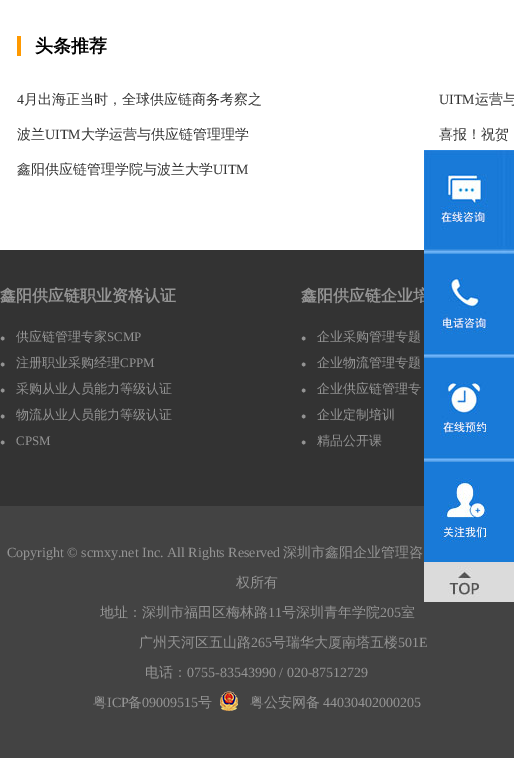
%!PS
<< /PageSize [514 758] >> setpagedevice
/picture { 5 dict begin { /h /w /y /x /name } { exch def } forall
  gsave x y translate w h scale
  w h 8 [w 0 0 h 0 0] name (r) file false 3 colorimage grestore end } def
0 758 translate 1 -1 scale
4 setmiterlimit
1 setgray
0 0 514 758 rectfill
1 0.6 0 setrgbcolor
17 36 4 20 rectfill
/WenQuanYiZenHei-Bold [18 0 0 -18 0 0] selectfont
0 setgray
35 52 moveto (头条推荐) show
/LiberationSerif-Regular [14 0 0 -14 0 0] selectfont
0.2 setgray
17 104 moveto (4) show
/WenQuanYiZenHei-Medium [14 0 0 -14 0 0] selectfont
24 104 moveto (月出海正当时，全球供应链商务考察之) show
/LiberationSerif-Regular [14 0 0 -14 0 0] selectfont
439 104 moveto (UITM) show
/WenQuanYiZenHei-Medium [14 0 0 -14 0 0] selectfont
475 104 moveto (运营与) show
17 139 moveto (波兰) show
/LiberationSerif-Regular [14 0 0 -14 0 0] selectfont
45 139 moveto (UITM) show
/WenQuanYiZenHei-Medium [14 0 0 -14 0 0] selectfont
81 139 moveto (大学运营与供应链管理理学) show
439 139 moveto (喜报！祝贺) show
17 174 moveto (鑫阳供应链管理学院与波兰大学) show
/LiberationSerif-Regular [14 0 0 -14 0 0] selectfont
213 174 moveto (UITM) show
0 250 424 256 rectfill
/WenQuanYiZenHei-Bold [16 0 0 -16 0 0] selectfont
0.58 setgray
0 301 moveto (鑫阳供应链职业资格认证) show
/LiberationSerif-Regular [9 0 0 -9 0 0] selectfont
0 341 moveto (●) show
/WenQuanYiZenHei-Medium [13 0 0 -13 0 0] selectfont
16 341 moveto (供应链管理专家) show
/LiberationSerif-Regular [13 0 0 -13 0 0] selectfont
107 341 moveto (SCMP) show
/LiberationSerif-Regular [9 0 0 -9 0 0] selectfont
0 367 moveto (●) show
/WenQuanYiZenHei-Medium [13 0 0 -13 0 0] selectfont
16 367 moveto (注册职业采购经理) show
/LiberationSerif-Regular [13 0 0 -13 0 0] selectfont
120 367 moveto (CPPM) show
/LiberationSerif-Regular [9 0 0 -9 0 0] selectfont
0 393 moveto (●) show
/WenQuanYiZenHei-Medium [13 0 0 -13 0 0] selectfont
16 393 moveto (采购从业人员能力等级认证) show
/LiberationSerif-Regular [9 0 0 -9 0 0] selectfont
0 419 moveto (●) show
/WenQuanYiZenHei-Medium [13 0 0 -13 0 0] selectfont
16 419 moveto (物流从业人员能力等级认证) show
/LiberationSerif-Regular [9 0 0 -9 0 0] selectfont
0 445 moveto (●) show
/LiberationSerif-Regular [13 0 0 -13 0 0] selectfont
16 445 moveto (CPSM) show
/WenQuanYiZenHei-Bold [16 0 0 -16 0 0] selectfont
301 301 moveto (鑫阳供应链企业培) show
/LiberationSerif-Regular [9 0 0 -9 0 0] selectfont
301 341 moveto (●) show
/WenQuanYiZenHei-Medium [13 0 0 -13 0 0] selectfont
317 341 moveto (企业采购管理专题) show
/LiberationSerif-Regular [9 0 0 -9 0 0] selectfont
301 367 moveto (●) show
/WenQuanYiZenHei-Medium [13 0 0 -13 0 0] selectfont
317 367 moveto (企业物流管理专题) show
/LiberationSerif-Regular [9 0 0 -9 0 0] selectfont
301 393 moveto (●) show
/WenQuanYiZenHei-Medium [13 0 0 -13 0 0] selectfont
317 393 moveto (企业供应链管理专) show
/LiberationSerif-Regular [9 0 0 -9 0 0] selectfont
301 419 moveto (●) show
/WenQuanYiZenHei-Medium [13 0 0 -13 0 0] selectfont
317 419 moveto (企业定制培训) show
/LiberationSerif-Regular [9 0 0 -9 0 0] selectfont
301 445 moveto (●) show
/WenQuanYiZenHei-Medium [13 0 0 -13 0 0] selectfont
317 445 moveto (精品公开课) show
0.263 setgray
0 506 514 252 rectfill
/LiberationSerif-Regular [14 0 0 -14 0 0] selectfont
0.58 setgray
7 557 moveto (Copyright © scmxy.net Inc. All Rights Reserved) show
/WenQuanYiZenHei-Medium [14 0 0 -14 0 0] selectfont
283 557 moveto (深圳市鑫阳企业管理咨) show
236 587 moveto (权所有) show
100 617 moveto (地址：深圳市福田区梅林路) show
/LiberationSerif-Regular [14 0 0 -14 0 0] selectfont
268 617 moveto (11) show
/WenQuanYiZenHei-Medium [14 0 0 -14 0 0] selectfont
282 617 moveto (号深圳青年学院) show
/LiberationSerif-Regular [14 0 0 -14 0 0] selectfont
380 617 moveto (205) show
/WenQuanYiZenHei-Medium [14 0 0 -14 0 0] selectfont
401 617 moveto (室) show
139 647 moveto (广州天河区五山路) show
/LiberationSerif-Regular [14 0 0 -14 0 0] selectfont
251 647 moveto (265) show
/WenQuanYiZenHei-Medium [14 0 0 -14 0 0] selectfont
272 647 moveto (号瑞华大厦南塔五楼) show
/LiberationSerif-Regular [14 0 0 -14 0 0] selectfont
398 647 moveto (501E) show
/WenQuanYiZenHei-Medium [14 0 0 -14 0 0] selectfont
145 677 moveto (电话：) show
/LiberationSerif-Regular [14 0 0 -14 0 0] selectfont
187 677 moveto (0755-83543990 / 020-87512729) show
/WenQuanYiZenHei-Medium [14 0 0 -14 0 0] selectfont
93 707 moveto (粤) show
/LiberationSerif-Regular [14 0 0 -14 0 0] selectfont
107 707 moveto (ICP) show
/WenQuanYiZenHei-Medium [14 0 0 -14 0 0] selectfont
128 707 moveto (备) show
/LiberationSerif-Regular [14 0 0 -14 0 0] selectfont
142 707 moveto (09009515) show
/WenQuanYiZenHei-Medium [14 0 0 -14 0 0] selectfont
198 707 moveto (号) show
(img1.rgb) 220 691 18 20 picture
250 707 moveto (粤公安网备) show
/LiberationSerif-Regular [14 0 0 -14 0 0] selectfont
323 707 moveto (44030402000205) show
(img2.rgb) 424 150 90 452 picture
showpage
